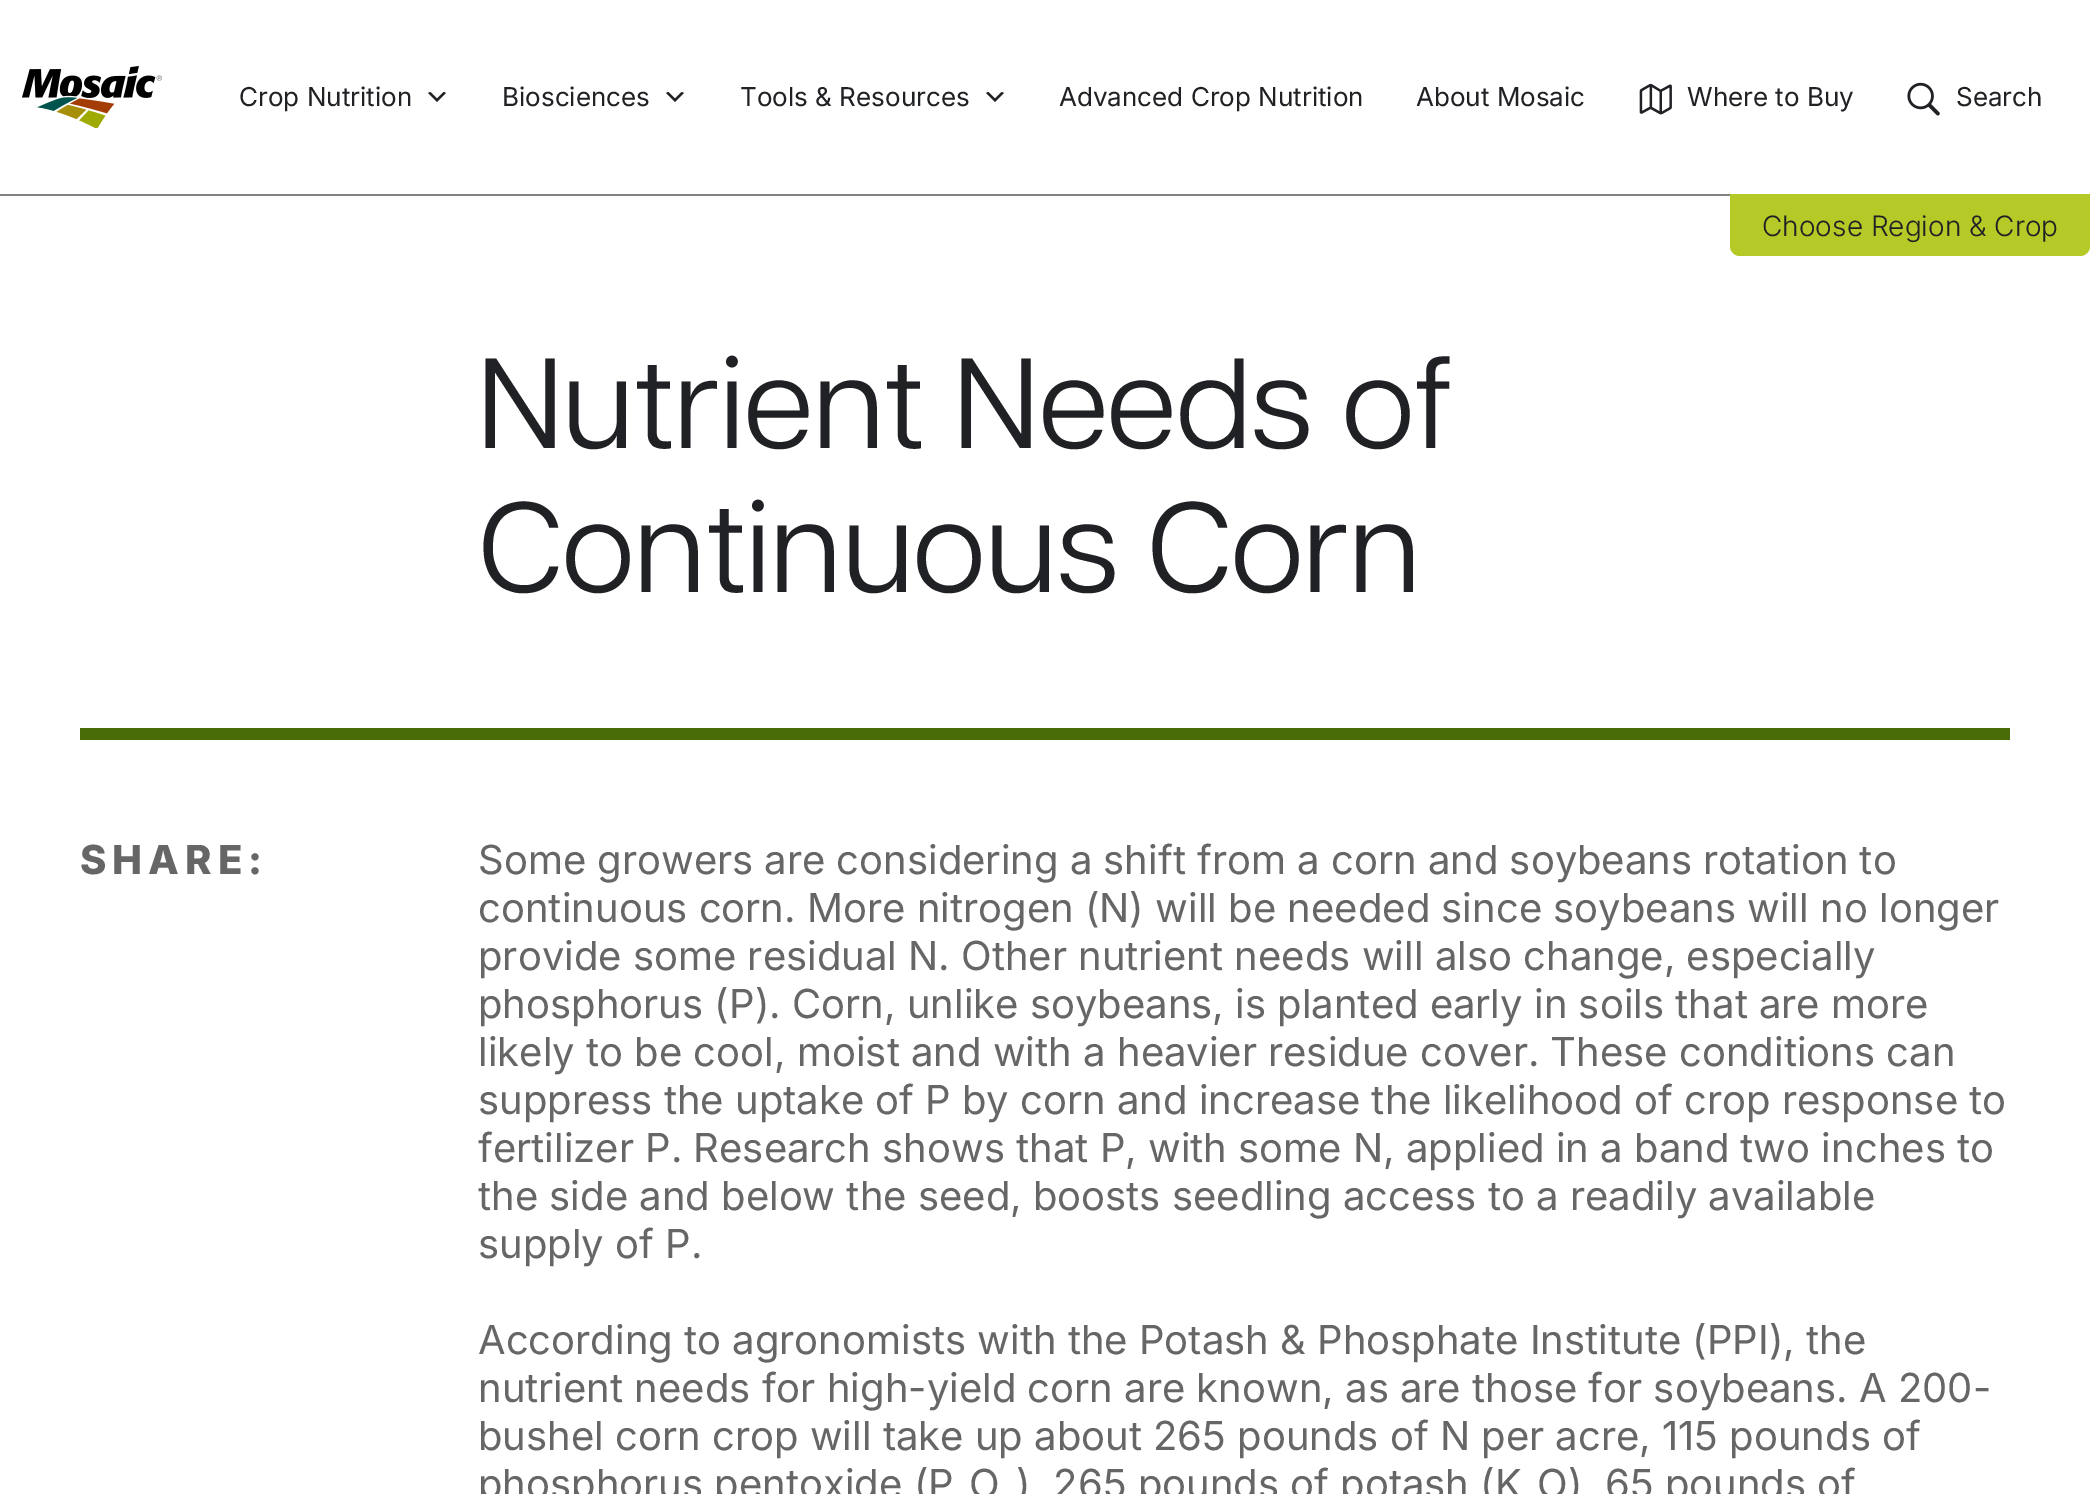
%!PS
<< /PageSize [2090 1494] >> setpagedevice
/picture { 5 dict begin { /h /w /y /x /name } { exch def } forall
  gsave x y translate w h scale
  w h 8 [w 0 0 h 0 0] name (r) file false 3 colorimage grestore end } def
0 1494 translate 1 -1 scale
4 setmiterlimit
1 setgray
0 0 2090 1494 rectfill
0.502 setgray
0 194 1730 2 rectfill
(img1.rgb) 22 66 140 62 picture
/Inter-Regular [26 0 0 -26 0 0] selectfont
0.125 0.129 0.141 setrgbcolor
239 106 moveto (Crop Nutrition) show
newpath 430.5 92 moveto 437 98.5 lineto 443.5 92 lineto 446 93 lineto 437 102 lineto 428 93 lineto closepath fill
502 106 moveto (Biosciences) show
newpath 668.5 92 moveto 675 98.5 lineto 681.5 92 lineto 684 93 lineto 675 102 lineto 666 93 lineto closepath fill
740 106 moveto (Tools & Resources) show
newpath 988.5 92 moveto 995 98.5 lineto 1001.5 92 lineto 1004 93 lineto 995 102 lineto 986 93 lineto closepath fill
1059 106 moveto (Advanced Crop Nutrition) show
1416 106 moveto (About Mosaic) show
(img2.rgb) 1639 83 33 32 picture
1687 106 moveto (Where to Buy) show
(img3.rgb) 1907 82 33 34 picture
1956 106 moveto (Search) show
0.71 0.788 0.153 setrgbcolor
newpath 1730 194 moveto 2090 194 lineto 2090 246 lineto 2090 251.5 2085.5 256 2080 256 curveto 1740 256 lineto 1734.5 256 1730 251.5 1730 246 curveto closepath fill
/Inter-Light [28 0 0 -28 0 0] selectfont
0.125 0.129 0.141 setrgbcolor
1762 236 moveto (Choose Region & Crop) show
0.286 0.424 0.035 setrgbcolor
80 728 1930 12 rectfill
/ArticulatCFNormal-Regular [128 0 0 -128 0 0] selectfont
0.125 0.129 0.141 setrgbcolor
478 448 moveto (Nutrient Needs of) show
478 592 moveto (Continuous Corn) show
/Inter-ExtraBold [40 0 0 -40 0 0] selectfont
0.4 setgray
80 874 moveto 6 0 (SHARE:) ashow
/Inter-Regular [40 0 0 -40 0 0] selectfont
478 874 moveto (Some growers are considering a shift from a corn and soybeans rotation to) show
478 922 moveto (continuous corn. More nitrogen \(N\) will be needed since soybeans will no longer) show
478 970 moveto (provide some residual N. Other nutrient needs will also change, especially) show
478 1018 moveto (phosphorus \(P\). Corn, unlike soybeans, is planted early in soils that are more) show
478 1066 moveto (likely to be cool, moist and with a heavier residue cover. These conditions can) show
478 1114 moveto (suppress the uptake of P by corn and increase the likelihood of crop response to) show
478 1162 moveto (fertilizer P. Research shows that P, with some N, applied in a band two inches to) show
478 1210 moveto (the side and below the seed, boosts seedling access to a readily available) show
478 1258 moveto (supply of P.) show
478 1354 moveto (According to agronomists with the Potash & Phosphate Institute \(PPI\), the) show
478 1402 moveto (nutrient needs for high-yield corn are known, as are those for soybeans. A 200-) show
478 1450 moveto (bushel corn crop will take up about 265 pounds of N per acre, 115 pounds of) show
478 1498 moveto (phosphorus pentoxide \(P) show
969 1498 moveto (O) show
1016 1498 moveto (\), 265 pounds of potash \(K) show
1537 1498 moveto (O\), 65 pounds of) show
showpage
